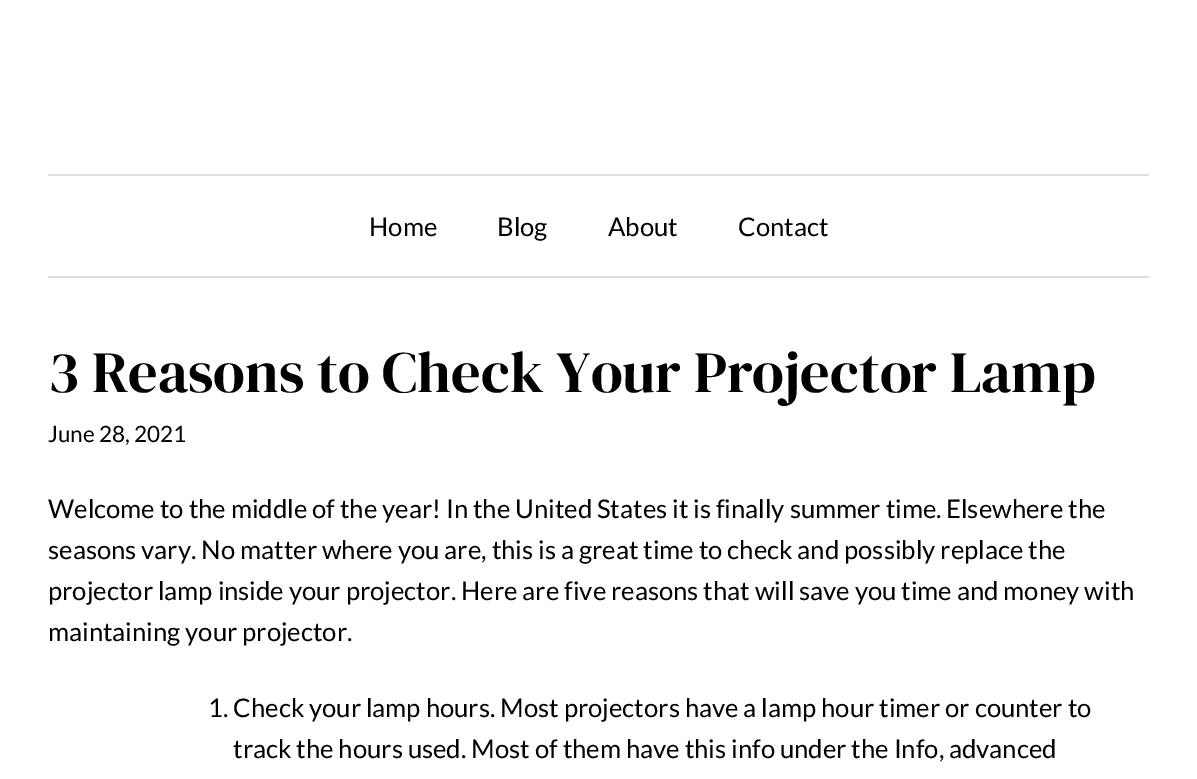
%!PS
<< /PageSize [1197 779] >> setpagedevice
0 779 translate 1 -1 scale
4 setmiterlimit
1 setgray
0 0 1197 779 rectfill
0.871 setgray
48 174 1101 2 rectfill
48 276 1101 2 rectfill
/Lato-Regular [25.65 0 0 -25.65 0 0] selectfont
0 setgray
369 236 moveto (Home) show
497 236 moveto (Blog) show
608 236 moveto (About) show
738 236 moveto (Contact) show
/DMSerifDisplay-Regular [58.25 0 0 -58.25 0 0] selectfont
48 392 moveto (3 Reasons to Check Your Projector Lamp) show
/Lato-Regular [22.5 0 0 -22.5 0 0] selectfont
48 442 moveto (June 28, 2021) show
/Lato-Regular [25.65 0 0 -25.65 0 0] selectfont
48 518 moveto (Welcome to the middle of the year! In the United States it is finally summer time.) show
946 518 moveto (Elsewhere the) show
48 559 moveto (seasons vary. No matter where you are, this is a great time to check and possibly replace the) show
48 600 moveto (projector lamp inside your projector. Here are five reasons that will save you time and money with) show
48 641 moveto (maintaining your projector.) show
208 717 moveto (1. Check your lamp hours. Most projectors have a lamp hour timer or counter to) show
233 758 moveto (track the hours used. Most of them have this info under the Info, advanced) show
showpage
